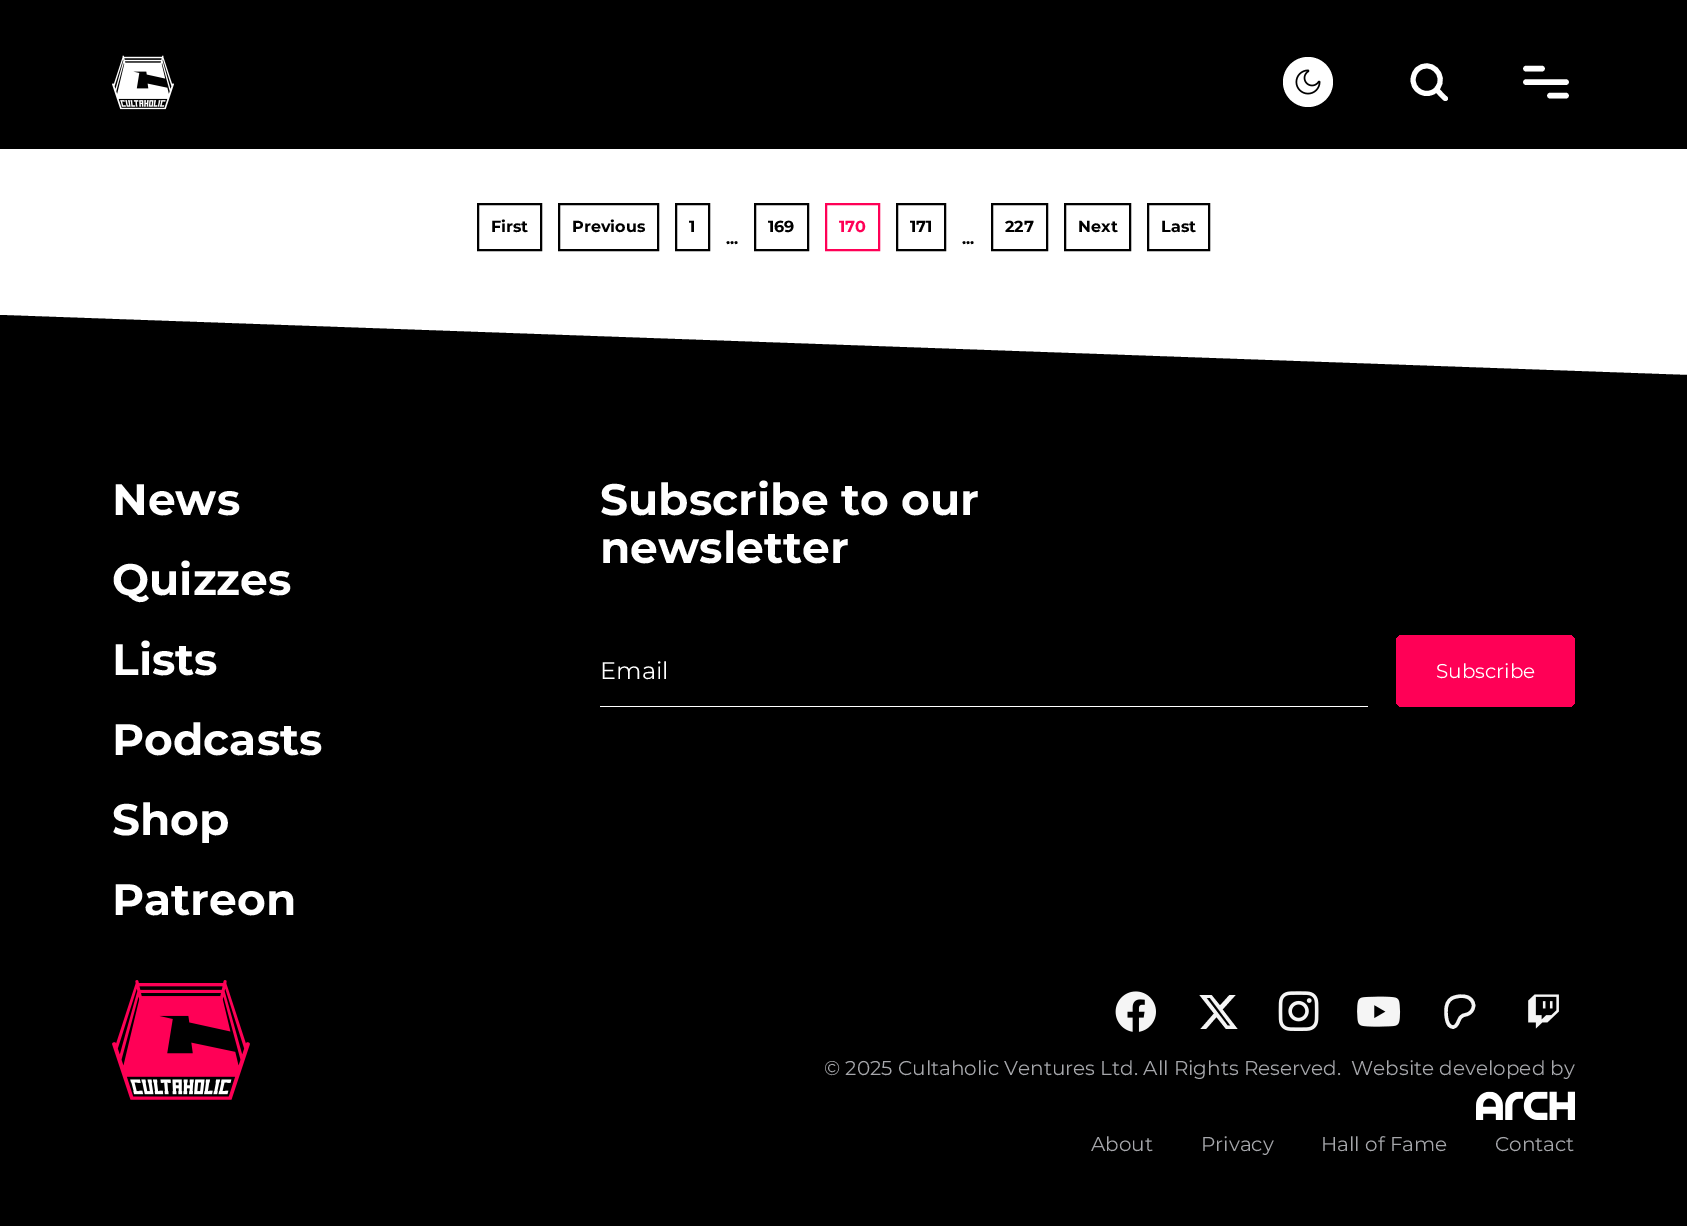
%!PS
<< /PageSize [1687 1226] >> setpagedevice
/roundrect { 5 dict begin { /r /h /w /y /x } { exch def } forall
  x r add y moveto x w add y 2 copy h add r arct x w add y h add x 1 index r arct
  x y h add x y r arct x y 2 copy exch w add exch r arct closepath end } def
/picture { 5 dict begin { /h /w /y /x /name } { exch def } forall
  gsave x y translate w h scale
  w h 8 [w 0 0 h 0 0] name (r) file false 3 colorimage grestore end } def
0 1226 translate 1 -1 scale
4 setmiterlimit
1 setgray
0 0 1687 1226 rectfill
0 setgray
0 0 1687 149 rectfill
(img1.rgb) 112 55 62 55 picture
1 setgray
newpath 1308 82 25 0 360 arc closepath fill
(img2.rgb) 1295 69 26 26 picture
5 setlinewidth
1 setlinecap
1 setlinejoin
newpath 1437 90 moveto 1439 92 1443.5 97.5 1445.5 98.5 curveto 1436.5 89.5 moveto 1427 99 1410.5 90.5 1413.5 77 curveto 1414 74.5 1415 72 1417 70 curveto 1429.5 57.5 1448 75.5 1437 88.5 curveto stroke
5.6 setlinewidth
0 setlinejoin
newpath 1526 68.5 moveto 1542 68.5 lineto 1526 82 moveto 1566 82 lineto 1550 95.5 moveto 1566 95.5 lineto stroke
0 setgray
2 setlinewidth
0 setlinecap
478 204 63 46 rectstroke
/Montserrat-Bold [16 0 0 -16 0 0] selectfont
491 232 moveto (First) show
559 204 99 46 rectstroke
572 232 moveto (Previous) show
676 204 33 46 rectstroke
689 232 moveto (1) show
755 204 53 46 rectstroke
768 232 moveto (169) show
1 0 0.337 setrgbcolor
826 204 53 46 rectstroke
839 232 moveto (170) show
0 setgray
897 204 48 46 rectstroke
910 232 moveto (171) show
992 204 55 46 rectstroke
1005 232 moveto (227) show
1065 204 65 46 rectstroke
1078 232 moveto (Next) show
1148 204 61 46 rectstroke
1161 232 moveto (Last) show
726 244 moveto (...) show
962 244 moveto (...) show
newpath 0 315 moveto 1687 375 lineto 1687 1226 lineto 0 1226 lineto closepath fill
/Montserrat-Bold [44 0 0 -44 0 0] selectfont
1 setgray
112 515 moveto (News) show
112 595 moveto (Quizzes) show
112 675 moveto (Lists) show
112 755 moveto (Podcasts) show
gsave
112 795 118 48 rectclip
112 835 moveto (Shop) show
grestore
112 915 moveto (Patreon) show
600 515 moveto (Subscribe to our) show
600 563 moveto (newsletter) show
600 706 768 1 rectfill
/Montserrat-Regular [24 0 0 -24 0 0] selectfont
600 679 moveto (Email) show
gsave 1396 635 179 72 7 roundrect clip newpath
<< /ShadingType 2 /ColorSpace /DeviceRGB /Coords [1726 809 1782 533] /Extend [true true] /Function << /FunctionType 3 /Domain [0 1] /Functions [<< /FunctionType 2 /Domain [0 1] /C0 [1 0 0.337] /C1 [1 0 0.337] /N 1 >> << /FunctionType 2 /Domain [0 1] /C0 [1 1 1] /C1 [1 1 1] /N 1 >>] /Bounds [0.5] /Encode [0 1 0 1] >> >> shfill grestore
/Montserrat-Regular [20 0 0 -20 0 0] selectfont
1436 678 moveto (Subscribe) show
(img3.rgb) 112 980 138 120 picture
(img4.rgb) 1115 991 41 41 picture
0.961 setgray
newpath 1229.5 995 moveto 1235.5 995 lineto 1222.5 1009.5 lineto 1237.5 1029 lineto 1226 1029 lineto 1216.5 1017 lineto 1206 1029 lineto 1200.5 1029 lineto 1214 1013.5 lineto 1199.5 995 lineto 1211.5 995 lineto 1220 1005.5 lineto closepath 1227.5 1025.5 moveto 1230.5 1025.5 lineto 1210 998 lineto 1206.5 998 lineto closepath fill
(img5.rgb) 1278 991 41 40 picture
(img6.rgb) 1357 996 44 31 picture
3.4 setlinewidth
1 setlinecap
1 setlinejoin
newpath 1473.5 1005.5 moveto 1473.5 1001.5 1470.5 998 1467 997 curveto 1462.5 995.5 1457 996 1452.5 998 curveto 1447.5 1000.5 1446 1005.5 1446 1011 curveto 1446 1015.5 1446.5 1027 1453 1027 curveto 1457.5 1027 1458 1020.5 1460.5 1017.5 curveto 1462 1015.5 1464 1015 1466.5 1014.5 curveto 1470.5 1013.5 1473.5 1010 1473.5 1005.5 curveto stroke
(img7.rgb) 1528 994 31 35 picture
0.651 0.655 0.671 setrgbcolor
824 1075 moveto (© 2025 Cultaholic Ventures Ltd. All Rights Reserved.) show
1351 1075 moveto (Website developed by) show
(img8.rgb) 1476 1091 99 29 picture
1091 1151 moveto (About) show
1201 1151 moveto (Privacy) show
1321 1151 moveto (Hall of Fame) show
1495 1151 moveto (Contact) show
showpage
